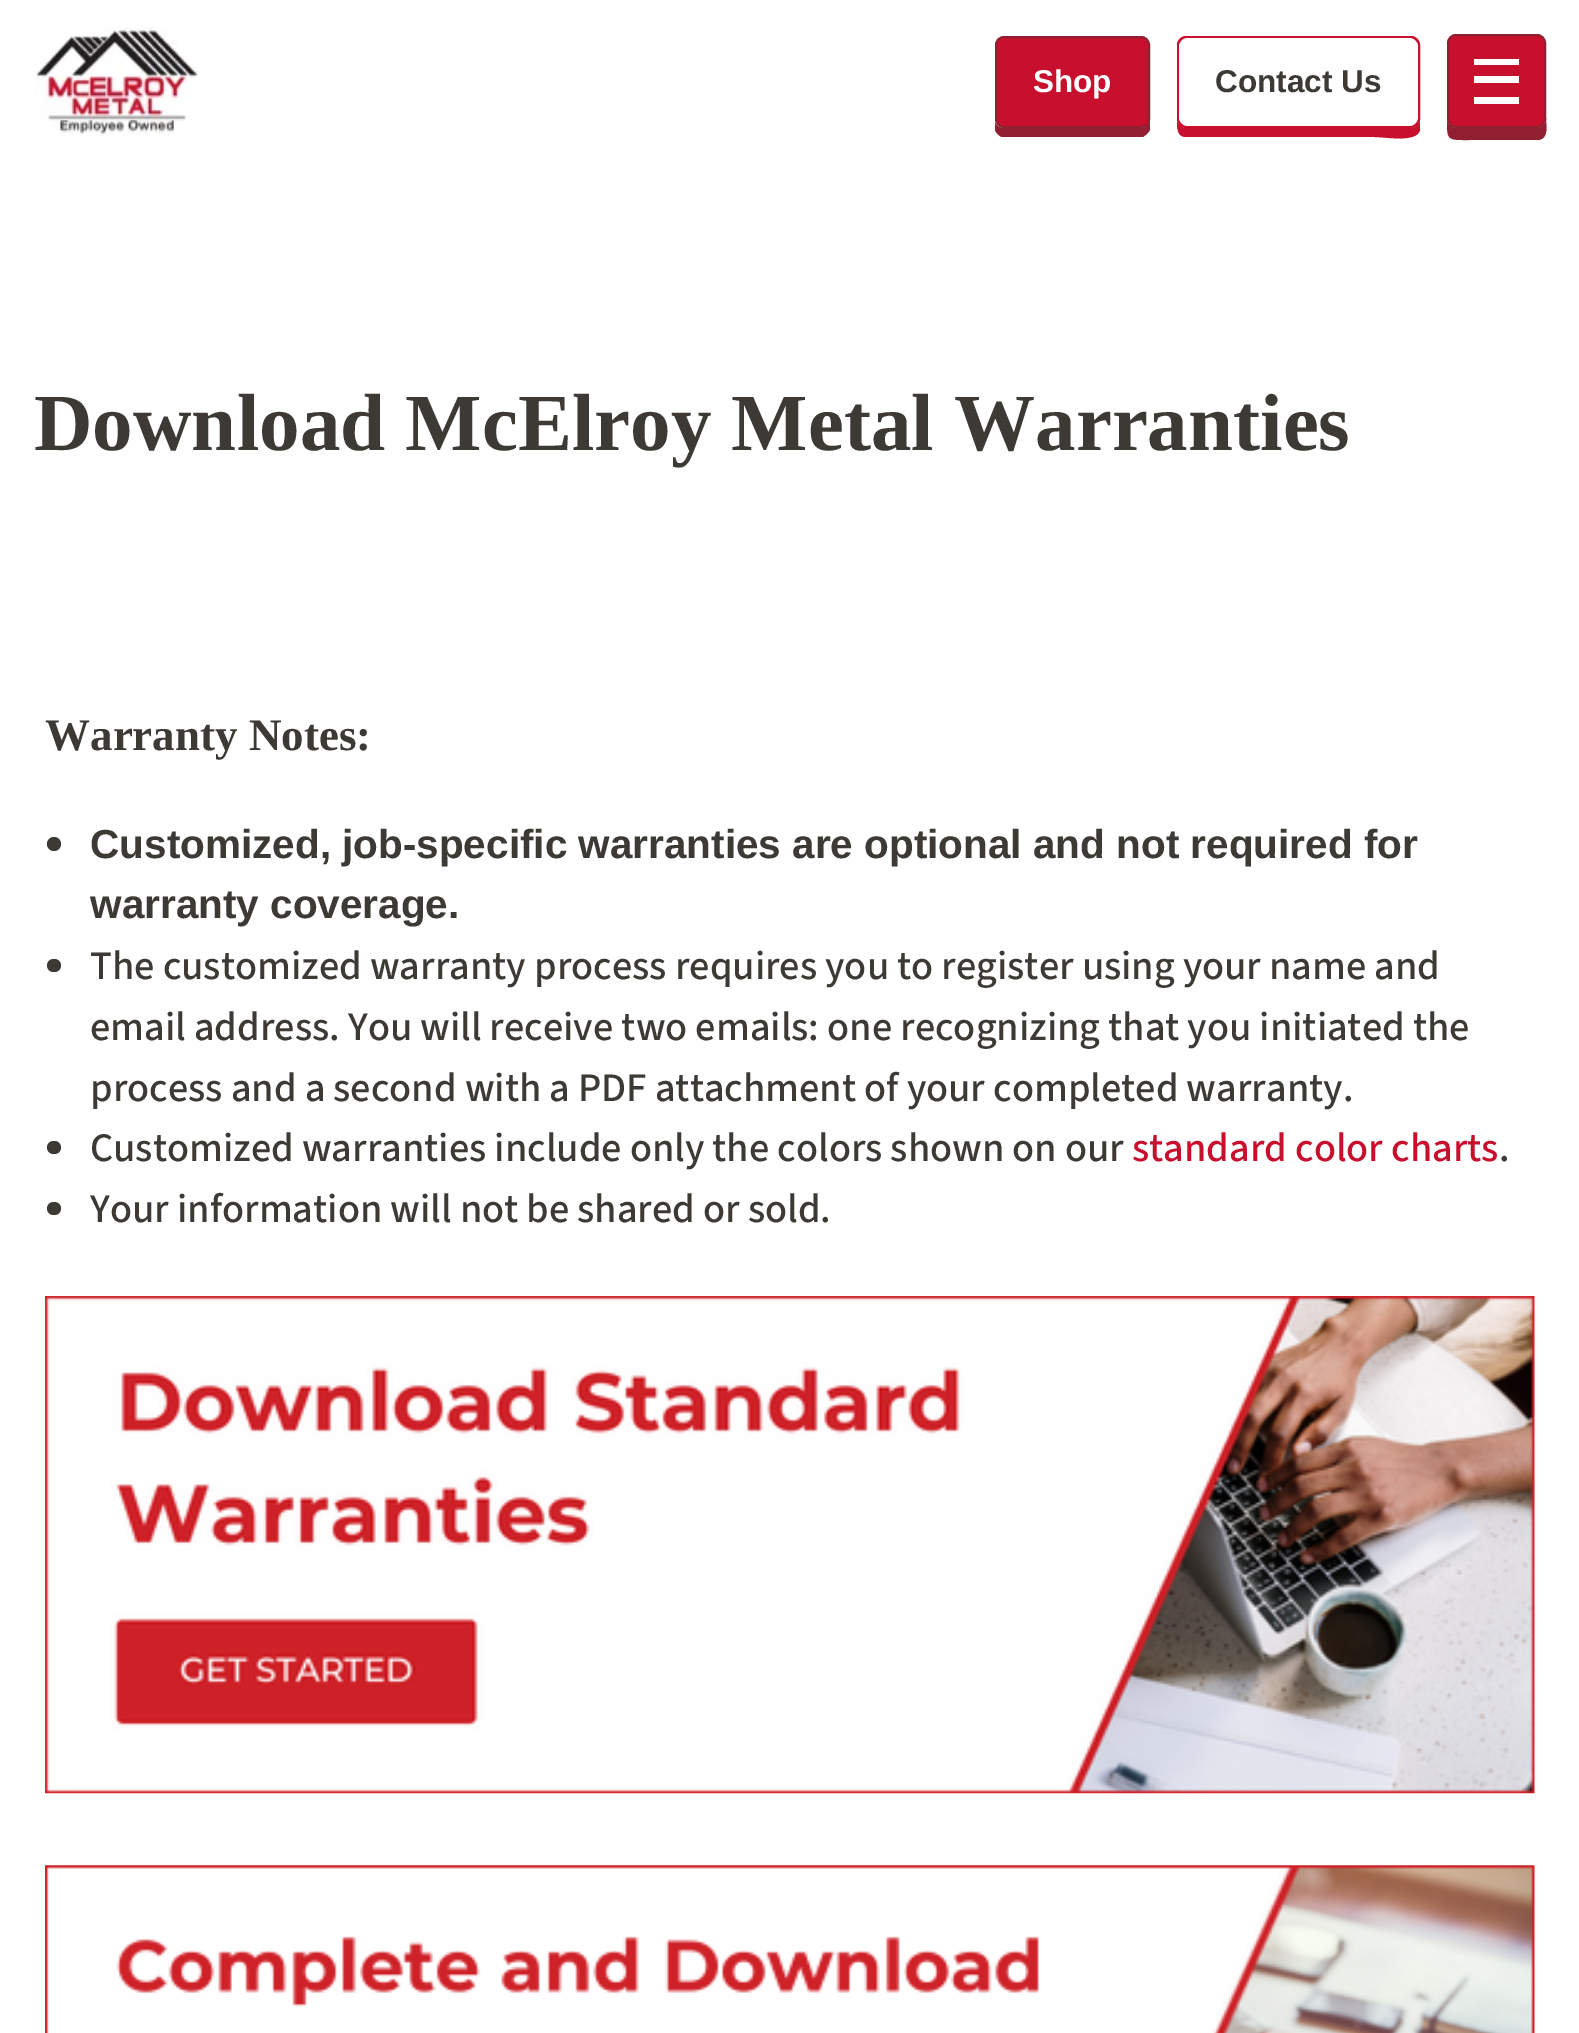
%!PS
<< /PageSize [1579 2033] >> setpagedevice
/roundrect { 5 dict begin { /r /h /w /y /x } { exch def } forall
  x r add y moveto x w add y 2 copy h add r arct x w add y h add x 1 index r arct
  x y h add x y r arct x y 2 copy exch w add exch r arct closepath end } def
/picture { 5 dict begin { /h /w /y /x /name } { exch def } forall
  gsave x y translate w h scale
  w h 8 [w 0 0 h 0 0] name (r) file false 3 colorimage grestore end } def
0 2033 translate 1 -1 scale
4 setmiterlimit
1 setgray
0 0 1579 2033 rectfill
(img1.rgb) 36 27 162 109 picture
0.565 0.125 0.188 setrgbcolor
newpath 995 122 moveto 995 130 lineto 996 133 999 136 1002 137 curveto 1143 137 lineto 1147 134 lineto 1150 130 lineto 1150 52 lineto 1150 119 lineto 1150 124 1146 128 1141 128 curveto 1004 128 lineto 1000 128 996 126 995 122 curveto closepath fill
0.784 0.063 0.18 setrgbcolor
996 37 153 90 8 roundrect gsave fill grestore
0.565 0.125 0.188 setrgbcolor
2 setlinewidth
stroke
/LiberationSans-Bold [31.5 0 0 -31.5 0 0] selectfont
1 setgray
1033 92 moveto (Shop) show
0.784 0.063 0.18 setrgbcolor
newpath 1177 121 moveto 1177 128 1177 137 1186 137 curveto 1374 137 lineto 1386 137 1417 143 1420 130 curveto 1420 52 lineto 1420 119 lineto 1420 124 1416 128 1411 128 curveto 1186 128 lineto 1182 128 1178 125 1177 121 curveto closepath fill
1178 37 241 90 8 roundrect gsave fill grestore
stroke
1 setgray
1179 38 239 88 9 roundrect fill
0.239 0.224 0.208 setrgbcolor
1215 92 moveto (Contact Us) show
0.565 0.125 0.188 setrgbcolor
newpath 1447 121 moveto 1447 141 1448 140 1470 140 curveto 1539 140 lineto 1549 138 1546 125 1546 118 curveto 1546 52 lineto 1546 119 lineto 1546 124 1542 128 1537 128 curveto 1456 128 lineto 1452 128 1448 125 1447 121 curveto closepath fill
0.784 0.063 0.18 setrgbcolor
1448 35 97 92 8 roundrect gsave fill grestore
0.565 0.125 0.188 setrgbcolor
stroke
1 setgray
1474 97 45 7 rectfill
1474 59 45 6 rectfill
1474 76 45 7 rectfill
/LiberationSerif-Bold [81 0 0 -81 0 0] selectfont
0.239 0.224 0.208 setrgbcolor
34 450 moveto (Download McElroy Metal Warranties) show
/LiberationSerif-Bold [45 0 0 -45 0 0] selectfont
45 750 moveto (Warranty Notes:) show
newpath 54 844 7 0 360 arc closepath fill
/LiberationSans-Bold [40.5 0 0 -40.5 0 0] selectfont
90 858 moveto (Customized, job-specific warranties are optional and not required for) show
90 918 moveto (warranty coverage.) show
47 959 14 13 6.5 roundrect fill
/SourceSans3-Medium [40.5 0 0 -40.5 0 0] selectfont
90 979 moveto (The customized warranty process requires you to register using your name and) show
90 1040 moveto (email address. You will receive two emails: one recognizing that you initiated the) show
90 1101 moveto (process and a second with a PDF attachment of your completed warranty.) show
47 1141 14 13 6.5 roundrect fill
90 1161 moveto (Customized warranties include only the colors shown on our) show
0.784 0.063 0.18 setrgbcolor
1132 1161 moveto (standard color charts) show
0.239 0.224 0.208 setrgbcolor
1499 1161 moveto (.) show
47 1202 14 13 6.5 roundrect fill
90 1222 moveto (Your information will not be shared or sold.) show
(img2.rgb) 45 1296 1490 498 picture
(img3.rgb) 45 1865 1490 168 picture
showpage
